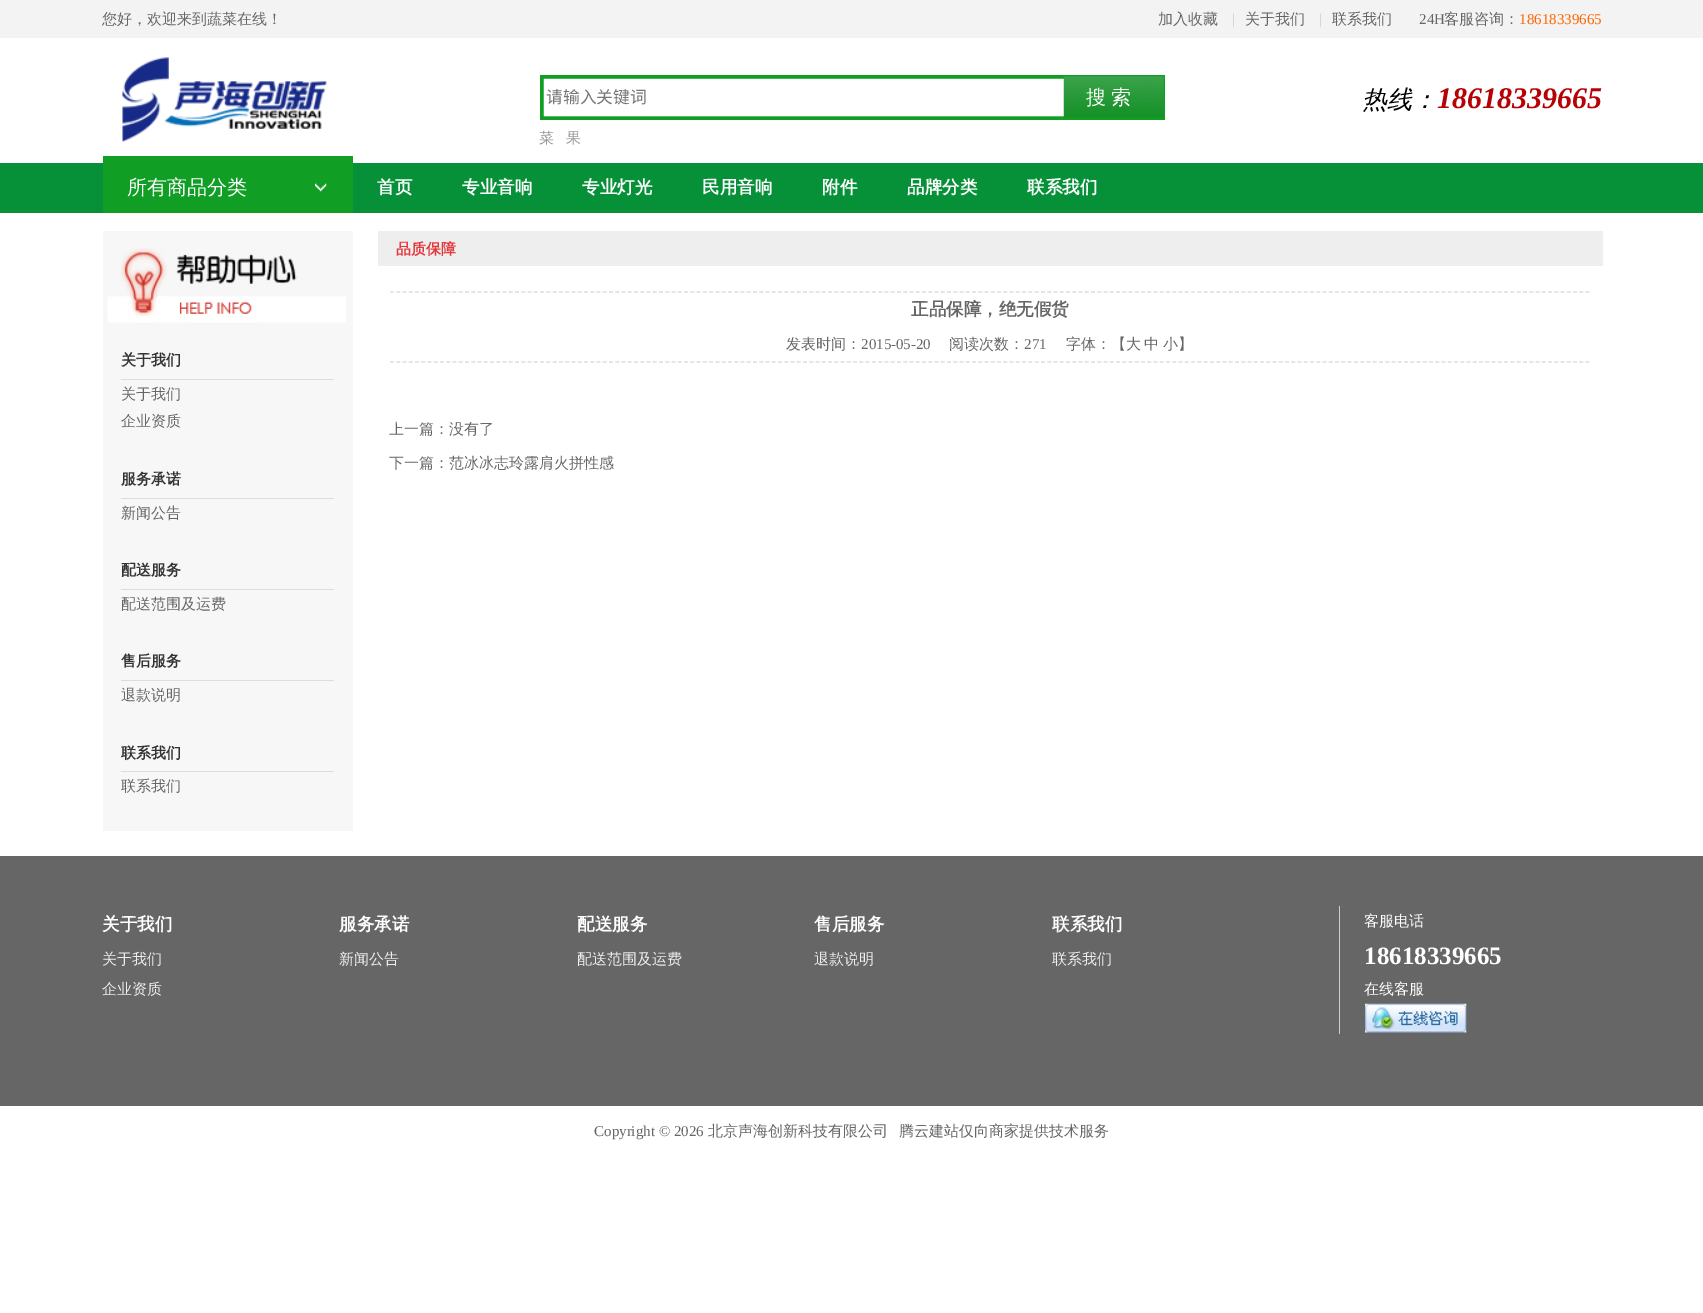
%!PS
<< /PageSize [1703 1313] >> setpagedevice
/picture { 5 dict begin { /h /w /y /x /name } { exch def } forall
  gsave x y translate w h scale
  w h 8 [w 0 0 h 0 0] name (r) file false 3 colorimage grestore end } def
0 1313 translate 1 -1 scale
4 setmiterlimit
1 setgray
0 0 1703 1313 rectfill
0.953 setgray
0 0 1703 38 rectfill
/WenQuanYiZenHei-Medium [15 0 0 -15 0 0] selectfont
0.4 setgray
102 24 moveto (您好，欢迎来到蔬菜在线！) show
1158 24 moveto (加入收藏) show
/LiberationSerif-Regular [15 0 0 -15 0 0] selectfont
0.8 setgray
1232 24 moveto (|) show
/WenQuanYiZenHei-Medium [15 0 0 -15 0 0] selectfont
0.4 setgray
1245 24 moveto (关于我们) show
/LiberationSerif-Regular [15 0 0 -15 0 0] selectfont
0.8 setgray
1319 24 moveto (|) show
/WenQuanYiZenHei-Medium [15 0 0 -15 0 0] selectfont
0.4 setgray
1332 24 moveto (联系我们) show
/LiberationSerif-Regular [15 0 0 -15 0 0] selectfont
1419 24 moveto (24H) show
/WenQuanYiZenHei-Medium [15 0 0 -15 0 0] selectfont
1444 24 moveto (客服咨询：) show
/LiberationSerif-Regular [15 0 0 -15 0 0] selectfont
1 0.4 0 setrgbcolor
1519 24 moveto (18618339665) show
(img1.rgb) 122 57 205 85 picture
(img2.rgb) 540 75 625 45 picture
/NotoSansCJKSC-Regular [16.75 0 0 -16.75 0 0] selectfont
0.459 setgray
546 103 moveto (请输入关键词) show
/WenQuanYiZenHei-Medium [20 0 0 -20 0 0] selectfont
1 setgray
1086 104 moveto -1 0 32 (搜 索) widthshow
/WenQuanYiZenHei-Medium [15 0 0 -15 0 0] selectfont
0.6 setgray
539 143 moveto (菜) show
566 143 moveto (果) show
/WenQuanYiZenHei-MediumItalic [25 0 0 -25 0 0] selectfont
0.004 setgray
1362 108 moveto (热线：) show
/LiberationSerif-BoldItalic [30 0 0 -30 0 0] selectfont
0.714 0.004 0.02 setrgbcolor
1437 108 moveto (18618339665) show
0.024 0.569 0.224 setrgbcolor
0 163 1703 50 rectfill
0.063 0.62 0.145 setrgbcolor
103 156 250 57 rectfill
(img3.rgb) 315 183 12 9 picture
/WenQuanYiZenHei-Medium [20 0 0 -20 0 0] selectfont
1 setgray
127 194 moveto (所有商品分类) show
/WenQuanYiZenHei-Bold [17.5 0 0 -17.5 0 0] selectfont
377 193 moveto (首页) show
462 193 moveto (专业音响) show
582 193 moveto (专业灯光) show
702 193 moveto (民用音响) show
822 193 moveto (附件) show
907 193 moveto (品牌分类) show
1027 193 moveto (联系我们) show
0.969 setgray
103 231 250 600 rectfill
(img4.rgb) 107 248 239 75 picture
0.867 setgray
121 379 213 1 rectfill
/WenQuanYiZenHei-Bold [15 0 0 -15 0 0] selectfont
0.2 setgray
121 365 moveto (关于我们) show
/WenQuanYiZenHei-Medium [15 0 0 -15 0 0] selectfont
0.4 setgray
121 399 moveto (关于我们) show
121 426 moveto (企业资质) show
0.867 setgray
121 498 213 1 rectfill
/WenQuanYiZenHei-Bold [15 0 0 -15 0 0] selectfont
0.2 setgray
121 484 moveto (服务承诺) show
/WenQuanYiZenHei-Medium [15 0 0 -15 0 0] selectfont
0.4 setgray
121 518 moveto (新闻公告) show
0.867 setgray
121 589 213 1 rectfill
/WenQuanYiZenHei-Bold [15 0 0 -15 0 0] selectfont
0.2 setgray
121 575 moveto (配送服务) show
/WenQuanYiZenHei-Medium [15 0 0 -15 0 0] selectfont
0.4 setgray
121 609 moveto (配送范围及运费) show
0.867 setgray
121 680 213 1 rectfill
/WenQuanYiZenHei-Bold [15 0 0 -15 0 0] selectfont
0.2 setgray
121 666 moveto (售后服务) show
/WenQuanYiZenHei-Medium [15 0 0 -15 0 0] selectfont
0.4 setgray
121 700 moveto (退款说明) show
0.867 setgray
121 771 213 1 rectfill
/WenQuanYiZenHei-Bold [15 0 0 -15 0 0] selectfont
0.2 setgray
121 758 moveto (联系我们) show
/WenQuanYiZenHei-Medium [15 0 0 -15 0 0] selectfont
0.4 setgray
121 791 moveto (联系我们) show
0.933 setgray
378 231 1225 35 rectfill
/WenQuanYiZenHei-Bold [15 0 0 -15 0 0] selectfont
0.894 0.224 0.235 setrgbcolor
396 254 moveto (品质保障) show
0.867 setgray
1.2 setlinewidth
[3.75 2.51] 0 setdash
newpath 390 292 moveto 1590 292 lineto stroke
/WenQuanYiZenHei-Bold [17.5 0 0 -17.5 0 0] selectfont
0.4 setgray
911 315 moveto (正品保障，绝无假货) show
0.867 setgray
newpath 390 362 moveto 1590 362 lineto stroke
/WenQuanYiZenHei-Medium [15 0 0 -15 0 0] selectfont
0.4 setgray
786 349 moveto (发表时间：) show
/LiberationSerif-Regular [15 0 0 -15 0 0] selectfont
861 349 moveto (2015-05-20) show
/WenQuanYiZenHei-Medium [15 0 0 -15 0 0] selectfont
949 349 moveto (阅读次数：) show
/LiberationSerif-Regular [15 0 0 -15 0 0] selectfont
1024 349 moveto (271) show
/WenQuanYiZenHei-Medium [15 0 0 -15 0 0] selectfont
1066 349 moveto (字体：【大) show
1144 349 moveto (中) show
1163 349 moveto (小】) show
389 434 moveto (上一篇：没有了) show
389 468 moveto (下一篇：范冰冰志玲露肩火拼性感) show
0 856 1703 250 rectfill
/WenQuanYiZenHei-Bold [17.5 0 0 -17.5 0 0] selectfont
1 setgray
102 930 moveto (关于我们) show
/WenQuanYiZenHei-Medium [15 0 0 -15 0 0] selectfont
0.933 setgray
102 964 moveto (关于我们) show
102 994 moveto (企业资质) show
/WenQuanYiZenHei-Bold [17.5 0 0 -17.5 0 0] selectfont
1 setgray
339 930 moveto (服务承诺) show
/WenQuanYiZenHei-Medium [15 0 0 -15 0 0] selectfont
0.933 setgray
339 964 moveto (新闻公告) show
/WenQuanYiZenHei-Bold [17.5 0 0 -17.5 0 0] selectfont
1 setgray
577 930 moveto (配送服务) show
/WenQuanYiZenHei-Medium [15 0 0 -15 0 0] selectfont
0.933 setgray
577 964 moveto (配送范围及运费) show
/WenQuanYiZenHei-Bold [17.5 0 0 -17.5 0 0] selectfont
1 setgray
814 930 moveto (售后服务) show
/WenQuanYiZenHei-Medium [15 0 0 -15 0 0] selectfont
0.933 setgray
814 964 moveto (退款说明) show
/WenQuanYiZenHei-Bold [17.5 0 0 -17.5 0 0] selectfont
1 setgray
1052 930 moveto (联系我们) show
/WenQuanYiZenHei-Medium [15 0 0 -15 0 0] selectfont
0.933 setgray
1052 964 moveto (联系我们) show
0.8 setgray
1339 906 1 128 rectfill
1 setgray
1364 926 moveto (客服电话) show
/LiberationSerif-Bold [25 0 0 -25 0 0] selectfont
1364 964 moveto (18618339665) show
/WenQuanYiZenHei-Medium [15 0 0 -15 0 0] selectfont
1364 994 moveto (在线客服) show
(img5.rgb) 1365 1003 102 30 picture
/LiberationSerif-Regular [15 0 0 -15 0 0] selectfont
0.4 setgray
594 1136 moveto (Copyright © 2026) show
/WenQuanYiZenHei-Medium [15 0 0 -15 0 0] selectfont
708 1136 moveto (北京声海创新科技有限公司) show
899 1136 moveto (腾云建站仅向商家提供技术服务) show
showpage
